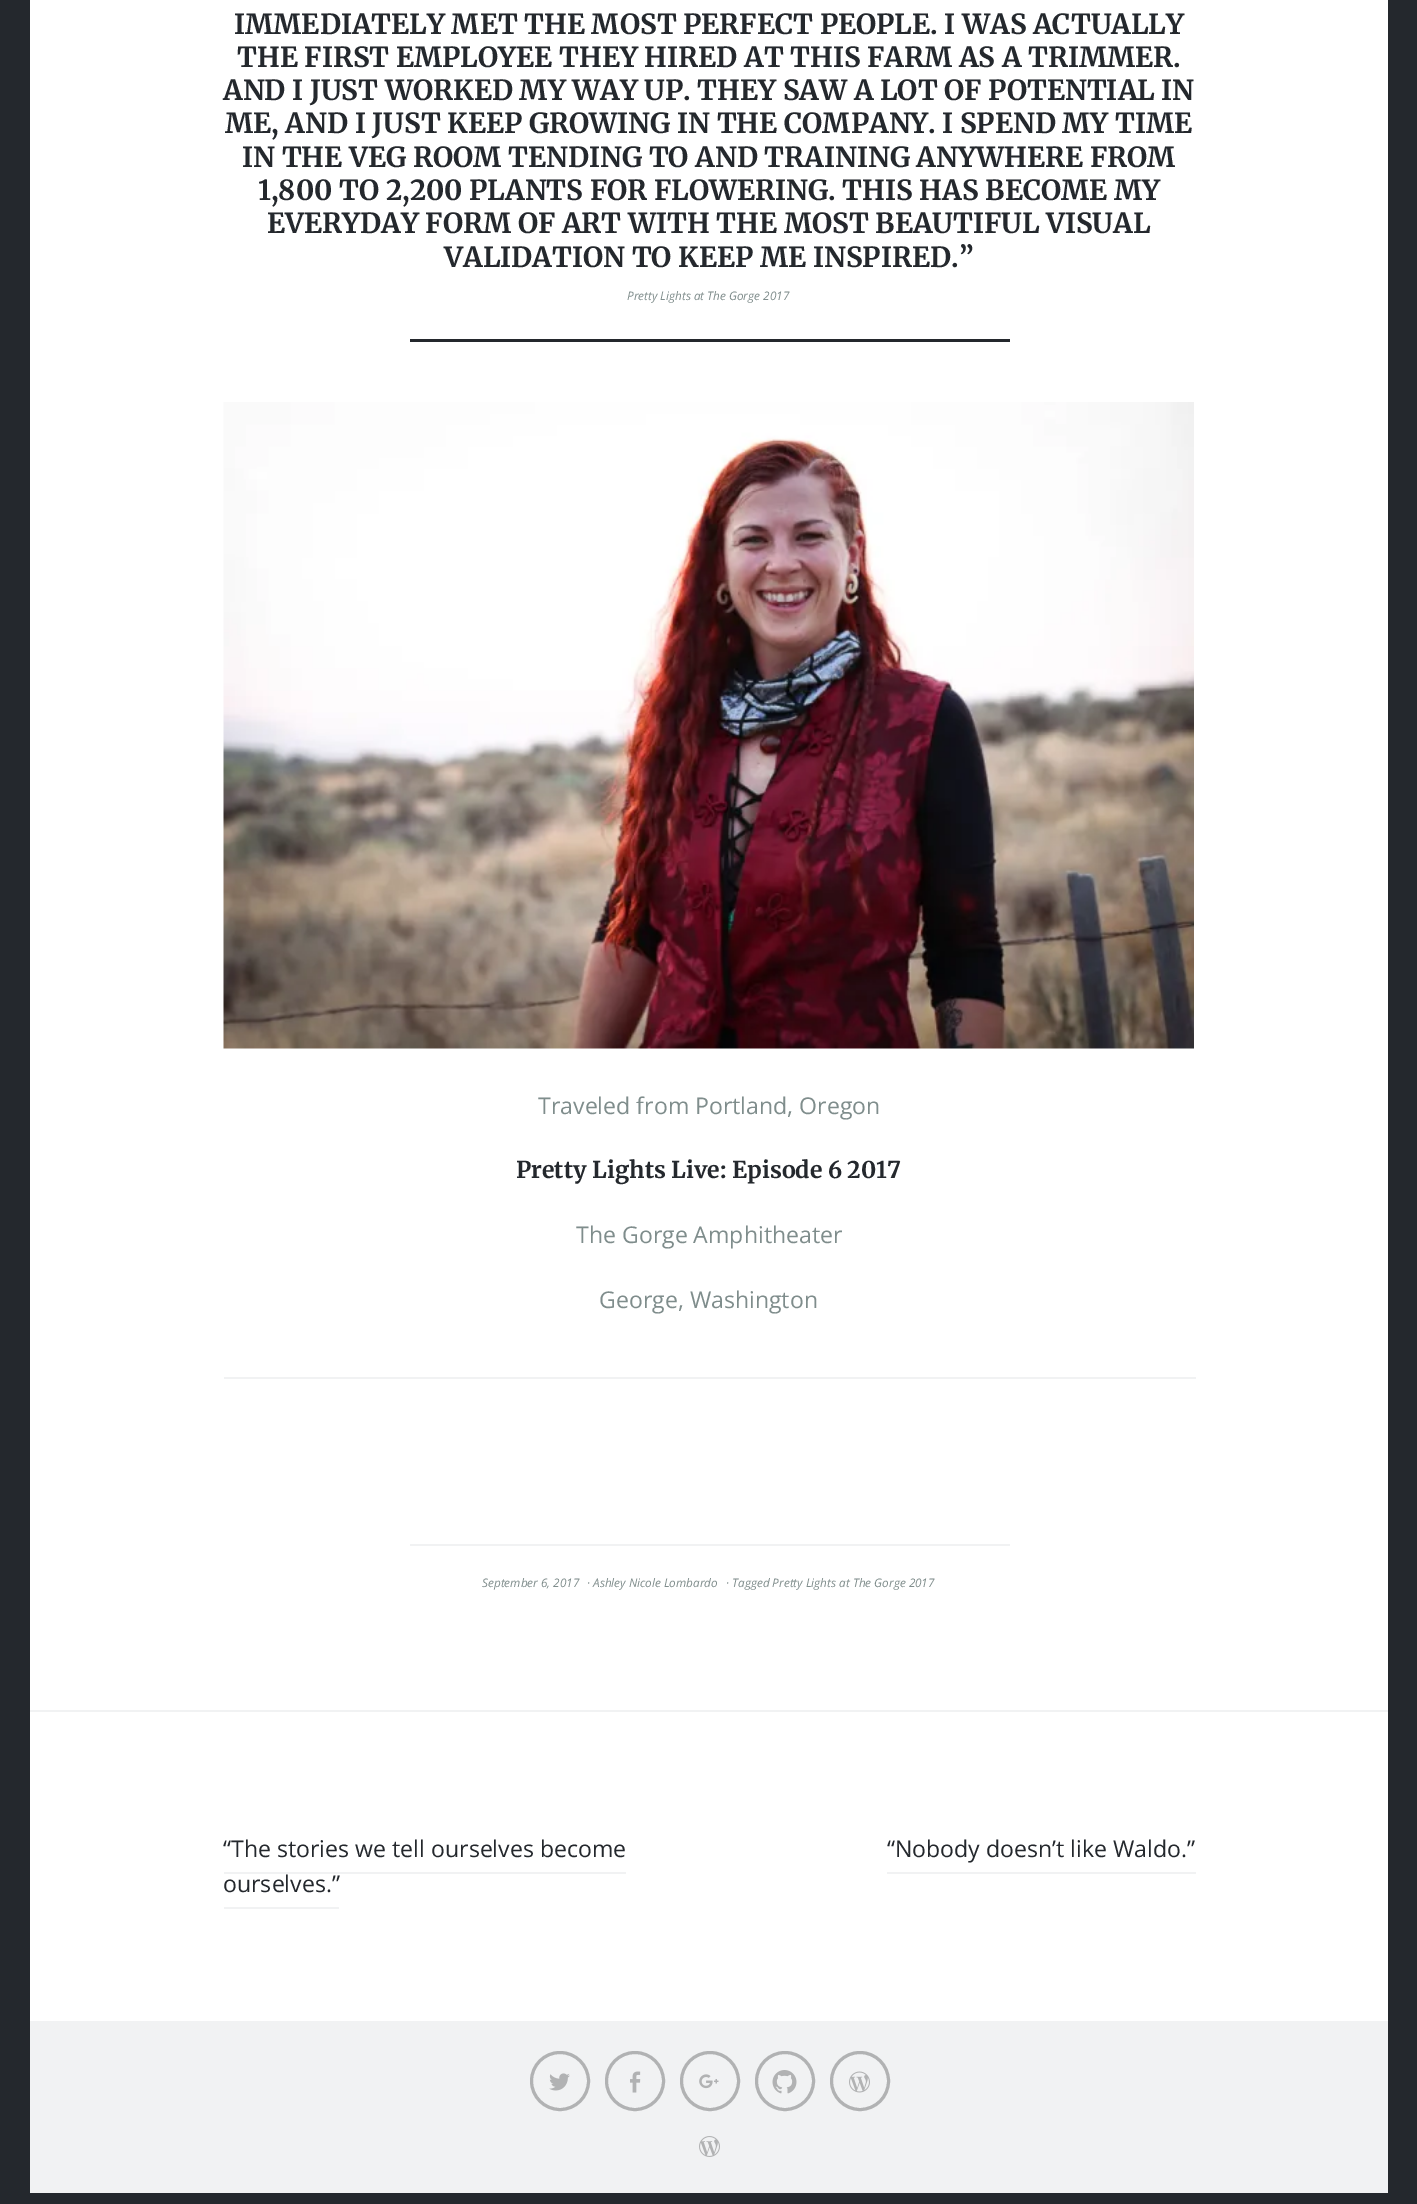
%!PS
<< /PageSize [1417 2204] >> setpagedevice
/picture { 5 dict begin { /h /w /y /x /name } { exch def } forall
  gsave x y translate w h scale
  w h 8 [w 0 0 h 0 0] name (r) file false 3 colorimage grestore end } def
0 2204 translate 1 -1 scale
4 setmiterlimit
0.141 0.157 0.176 setrgbcolor
0 0 1417 2204 rectfill
1 setgray
30 0 1358 2021 rectfill
/Merriweather-Light [27.7 0 0 -27.7 0 0] selectfont
0.141 0.157 0.176 setrgbcolor
234 34 moveto (IMMEDIATELY MET THE MOST PERFECT PEOPLE. I WAS ACTUALLY) show
237 67 moveto (THE FIRST EMPLOYEE THEY HIRED AT THIS FARM AS A TRIMMER.) show
223 100 moveto (AND I JUST WORKED MY WAY UP. THEY SAW A LOT OF POTENTIAL IN) show
225 133 moveto (ME, AND I JUST KEEP GROWING IN THE COMPANY.) show
942 133 moveto (I SPEND MY TIME) show
242 167 moveto (IN THE VEG ROOM TENDING TO AND TRAINING ANYWHERE FROM) show
258 200 moveto (1,800 TO 2,200 PLANTS FOR FLOWERING. THIS HAS BECOME MY) show
267 233 moveto (EVERYDAY FORM OF ART WITH THE MOST BEAUTIFUL VISUAL) show
444 267 moveto (VALIDATION TO KEEP ME INSPIRED.”) show
/OpenSans-Italic [11.75 0 0 -11.75 0 0] selectfont
0.498 0.553 0.549 setrgbcolor
627 300 moveto (Pretty Lights at The Gorge 2017) show
0.141 0.157 0.176 setrgbcolor
410 339 600 3 rectfill
(img1.rgb) 223 402 971 647 picture
/OpenSans-Regular [23.1 0 0 -23.1 0 0] selectfont
0.498 0.553 0.549 setrgbcolor
538 1114 moveto (Traveled from Portland, Oregon) show
/Merriweather-Light [23.1 0 0 -23.1 0 0] selectfont
0.141 0.157 0.176 setrgbcolor
516 1178 moveto (Pretty Lights Live: Episode 6 2017) show
/OpenSans-Regular [23.1 0 0 -23.1 0 0] selectfont
0.498 0.553 0.549 setrgbcolor
576 1243 moveto (The Gorge Amphitheater) show
599 1308 moveto (George, Washington) show
0.945 0.949 0.953 setrgbcolor
224 1377 972 2 rectfill
410 1544 600 2 rectfill
/OpenSans-Italic [11.75 0 0 -11.75 0 0] selectfont
0.498 0.553 0.549 setrgbcolor
482 1587 moveto (September 6, 2017) show
587 1587 moveto (· Ashley Nicole Lombardo) show
726 1587 moveto (· Tagged Pretty Lights at The Gorge 2017) show
0.945 0.949 0.953 setrgbcolor
30 1710 1358 2 rectfill
/OpenSans-Regular [23.1 0 0 -23.1 0 0] selectfont
0.141 0.157 0.176 setrgbcolor
223 1857 moveto (“The stories we tell ourselves become) show
223 1892 moveto (ourselves.”) show
0.945 0.949 0.953 setrgbcolor
224 1872 402 2 rectfill
224 1907 115 2 rectfill
0.141 0.157 0.176 setrgbcolor
887 1857 moveto (“Nobody doesn’t like Waldo.”) show
0.945 0.949 0.953 setrgbcolor
887 1872 309 2 rectfill
30 2021 1358 172 rectfill
0.694 0.698 0.702 setrgbcolor
3 setlinewidth
newpath 560 2081 28.5 0 360 arc closepath stroke
(img2.rgb) 549 2073 21 18 picture
newpath 635 2081 28.5 0 360 arc closepath stroke
(img3.rgb) 630 2071 11 22 picture
newpath 710 2081 28.5 0 360 arc closepath stroke
(img4.rgb) 699 2074 20 15 picture
newpath 785 2081 28.5 0 360 arc closepath stroke
(img5.rgb) 772 2070 25 24 picture
newpath 860 2081 28.5 0 360 arc closepath stroke
(img6.rgb) 849 2071 21 22 picture
(img7.rgb) 699 2136 21 21 picture
showpage
